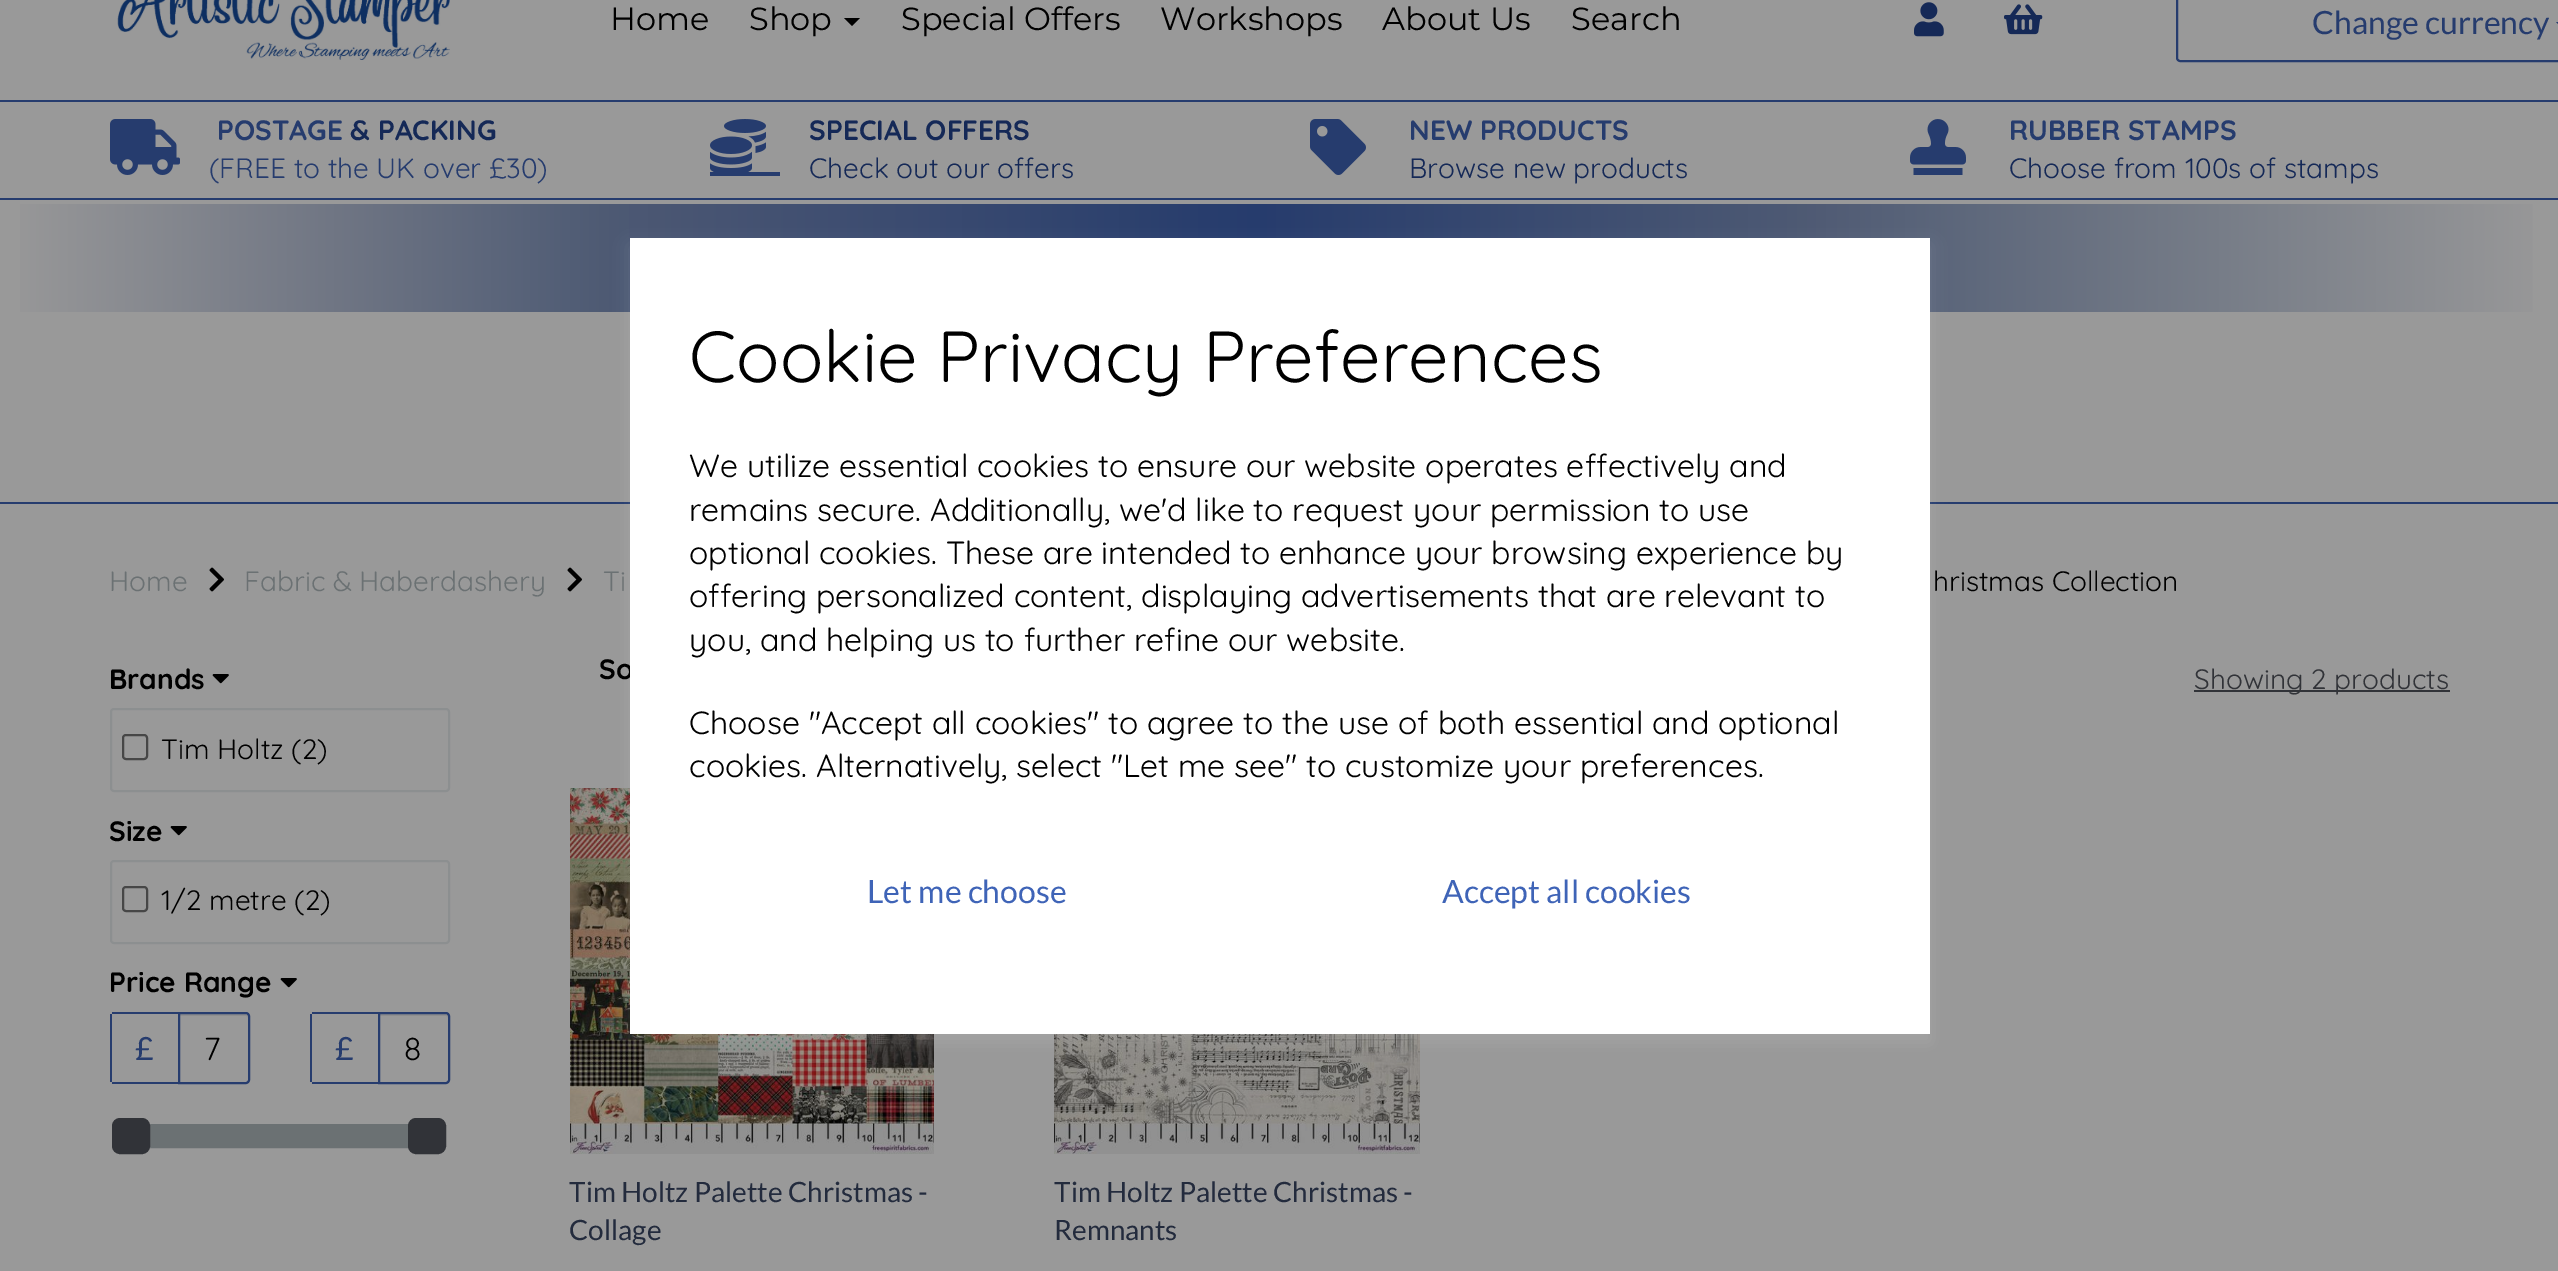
%!PS
<< /PageSize [2558 1271] /PageUsesTransparency true >> setpagedevice
/alpha { dup .setfillconstantalpha .setstrokeconstantalpha } def
/roundrect { 5 dict begin { /r /h /w /y /x } { exch def } forall
  x r add y moveto x w add y 2 copy h add r arct x w add y h add x 1 index r arct
  x y h add x y r arct x y 2 copy exch w add exch r arct closepath end } def
/shadow { 12 dict begin { /a /b /q /h /w /y /x } { exch def } forall gsave /was 0 def
  9 -2 -9 { dup b mul 4 div /e exch def 1 sub .425 mul 2.718 exch exp 1 add a .99 .min exch div /now exch def
    1 1 now sub 1 was sub div sub alpha /was now def
    w h .min e 2 mul add 0 gt { x e sub y e sub w e 2 mul add h e 2 mul add
      q e add b .6 mul add w h .min 2 div e add .min 0 .max roundrect fill } if } for grestore end } def
/picture { 5 dict begin { /h /w /y /x /name } { exch def } forall
  gsave x y translate w h scale
  w h 8 [w 0 0 h 0 0] name (r) file false 3 colorimage grestore end } def
0 .pushpdf14devicefilter
0 1271 translate 1 -1 scale
4 setmiterlimit
0.6 setgray
0 0 2558 1271 rectfill
0.149 0.235 0.431 setrgbcolor
0 100 2558 2 rectfill
(img1.rgb) 117 0 333 60 picture
/Montserrat-Regular [32 0 0 -32 0 0] selectfont
0 setgray
610 30 moveto (Home) show
749 30 moveto (Shop) show
newpath 844 18 moveto 860 18 lineto 852 26 lineto closepath fill
901 30 moveto (Special Offers) show
1160 30 moveto (Workshops) show
1382 30 moveto (About Us) show
1571 30 moveto (Search) show
(img2.rgb) 1914 2 30 35 picture
(img3.rgb) 2004 4 39 31 picture
0.149 0.235 0.431 setrgbcolor
2 setlinewidth
newpath 2180 -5 moveto 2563 -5 lineto 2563 61 lineto 2180 61 lineto 2178.5 61 2177 59.5 2177 58 curveto 2177 -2 lineto 2177 -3.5 2178.5 -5 2180 -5 curveto closepath stroke
/Lato-Regular [32 0 0 -32 0 0] selectfont
2312 34 moveto (Change currency) show
newpath 2556 22 moveto 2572 22 lineto 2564 30 lineto closepath fill
0 198 2558 2 rectfill
(img4.rgb) 110 119 70 56 picture
/Quicksand-Bold [28 0 0 -28 0 0] selectfont
217 140 moveto (POSTAGE) show
0.082 0.161 0.341 setrgbcolor
350 140 moveto (& PACKING) show
/Quicksand-Regular [28 0 0 -28 0 0] selectfont
0.149 0.235 0.431 setrgbcolor
209 178 moveto (\(FREE to the UK over £30\)) show
(img5.rgb) 710 119 56 53 picture
710 172 70 4 rectfill
/Quicksand-Bold [28 0 0 -28 0 0] selectfont
0.082 0.161 0.341 setrgbcolor
809 140 moveto (SPECIAL OFFERS) show
/Quicksand-Regular [28 0 0 -28 0 0] selectfont
809 178 moveto (Check out our offers) show
(img6.rgb) 1310 119 56 56 picture
/Quicksand-Bold [28 0 0 -28 0 0] selectfont
0.149 0.235 0.431 setrgbcolor
1409 140 moveto (NEW PRODUCTS) show
/Quicksand-Regular [28 0 0 -28 0 0] selectfont
0.082 0.161 0.341 setrgbcolor
1409 178 moveto (Browse new products) show
(img7.rgb) 1910 119 56 56 picture
/Quicksand-Bold [28 0 0 -28 0 0] selectfont
0.149 0.235 0.431 setrgbcolor
2009 140 moveto (RUBBER STAMPS) show
/Quicksand-Regular [28 0 0 -28 0 0] selectfont
0.082 0.161 0.341 setrgbcolor
2009 178 moveto (Choose from 100s of stamps) show
gsave newpath 20 204 moveto 2533 204 lineto 2533 312 lineto 20 312 lineto closepath clip newpath
<< /ShadingType 2 /ColorSpace /DeviceRGB /Coords [0 258 2558 258] /Extend [true true] /Function << /FunctionType 3 /Domain [0 1] /Functions [<< /FunctionType 2 /Domain [0 1] /C0 [0.6 0.6 0.6] /C1 [0.302 0.349 0.451] /N 1 >> << /FunctionType 2 /Domain [0 1] /C0 [0.302 0.349 0.451] /C1 [0.149 0.235 0.427] /N 1 >> << /FunctionType 2 /Domain [0 1] /C0 [0.149 0.235 0.427] /C1 [0.302 0.349 0.451] /N 1 >> << /FunctionType 2 /Domain [0 1] /C0 [0.302 0.349 0.451] /C1 [0.6 0.6 0.6] /N 1 >>] /Bounds [0.24 0.49 0.7] /Encode [0 1 0 1 0 1 0 1] >> >> shfill grestore
0.149 0.235 0.431 setrgbcolor
0 502 2558 2 rectfill
(img10.rgb) 570 788 364 366 picture
(img11.rgb) 1054 1034 366 120 picture
1 setgray
630 246 1300 796 0 8 0.1 shadow
/Quicksand-Bold [28 0 0 -28 0 0] selectfont
0 setgray
599 679 moveto (So) show
1 setgray
630 238 1300 796 rectfill
/Quicksand-Regular [72 0 0 -72 0 0] selectfont
0 setgray
689 382 moveto (Cookie Privacy Preferences) show
/Quicksand-Regular [32 0 0 -32 0 0] selectfont
689 477 moveto (We utilize essential cookies to ensure our website operates effectively and) show
689 521 moveto (remains secure. Additionally, we'd like to request your permission to use) show
689 564 moveto (optional cookies. These are intended to enhance your browsing experience by) show
689 607 moveto (offering personalized content, displaying advertisements that are relevant to) show
689 651 moveto (you, and helping us to further refine our website.) show
689 734 moveto (Choose "Accept all cookies" to agree to the use of both essential and optional) show
689 777 moveto (cookies. Alternatively, select "Let me see" to customize your preferences.) show
/Lato-Regular [32 0 0 -32 0 0] selectfont
0.247 0.392 0.718 setrgbcolor
867 903 moveto (Let me choose) show
1442 903 moveto (Accept all cookies) show
/Quicksand-Regular [28 0 0 -28 0 0] selectfont
0.42 0.443 0.451 setrgbcolor
109 591 moveto (Home) show
(img8.rgb) 209 567 15 25 picture
244 591 moveto (Fabric & Haberdashery) show
(img8.rgb) 567 567 15 25 picture
603 591 moveto (Ti) show
0 setgray
1933 591 moveto (hristmas Collection) show
/Quicksand-Bold [28 0 0 -28 0 0] selectfont
109 689 moveto (Brands) show
(img9.rgb) 212 674 17 10 picture
0.549 0.561 0.565 setrgbcolor
111 709 338 82 3 roundrect stroke
0.278 setgray
123 735 24 24 3 roundrect stroke
/Quicksand-Regular [28 0 0 -28 0 0] selectfont
0 setgray
161 759 moveto (Tim Holtz \(2\)) show
/Quicksand-Bold [28 0 0 -28 0 0] selectfont
109 841 moveto (Size) show
(img9.rgb) 170 826 17 10 picture
0.549 0.561 0.565 setrgbcolor
111 861 338 82 3 roundrect stroke
0.278 setgray
123 887 24 24 3 roundrect stroke
/Quicksand-Regular [28 0 0 -28 0 0] selectfont
0 setgray
161 910 moveto (1/2 metre \(2\)) show
/Quicksand-Bold [28 0 0 -28 0 0] selectfont
109 992 moveto (Price Range) show
(img9.rgb) 280 978 17 10 picture
0.149 0.235 0.431 setrgbcolor
112 1012 66 2 rectfill
112 1082 66 2 rectfill
110 1014 2 68 rectfill
/Lato-Regular [32 0 0 -32 0 0] selectfont
135 1060 moveto (£) show
0.557 setgray
newpath 180 1016 moveto 246 1016 lineto 247 1016 248 1017 248 1018 curveto 248 1016 lineto 248 1015 247 1014 246 1014 curveto 180 1014 lineto closepath fill
0.149 0.235 0.431 setrgbcolor
newpath 179 1013 moveto 246 1013 lineto 247.5 1013 249 1014.5 249 1016 curveto 249 1080 lineto 249 1081.5 247.5 1083 246 1083 curveto 179 1083 lineto closepath stroke
/Quicksand-Regular [32 0 0 -32 0 0] selectfont
0 setgray
204 1060 moveto (7) show
0.149 0.235 0.431 setrgbcolor
312 1012 66 2 rectfill
312 1082 66 2 rectfill
310 1014 2 68 rectfill
/Lato-Regular [32 0 0 -32 0 0] selectfont
335 1060 moveto (£) show
0.557 setgray
newpath 380 1016 moveto 446 1016 lineto 447 1016 448 1017 448 1018 curveto 448 1016 lineto 448 1015 447 1014 446 1014 curveto 380 1014 lineto closepath fill
0.149 0.235 0.431 setrgbcolor
newpath 379 1013 moveto 446 1013 lineto 447.5 1013 449 1014.5 449 1016 curveto 449 1080 lineto 449 1081.5 447.5 1083 446 1083 curveto 379 1083 lineto closepath stroke
/Quicksand-Regular [32 0 0 -32 0 0] selectfont
0 setgray
404 1060 moveto (8) show
0.42 0.443 0.451 setrgbcolor
150 1126 258 20 rectfill
131 1125 298 22 rectstroke
0.192 0.2 0.22 setrgbcolor
113 1119 36 34 7 roundrect gsave fill grestore
stroke
409 1119 36 34 7 roundrect gsave fill grestore
stroke
2194 690 256 2 rectfill
/Quicksand-Regular [28 0 0 -28 0 0] selectfont
2194 689 moveto (Showing 2 products) show
/Lato-Regular [28 0 0 -28 0 0] selectfont
0.137 0.169 0.239 setrgbcolor
569 1202 moveto (Tim Holtz Palette Christmas -) show
569 1240 moveto (Collage) show
1054 1202 moveto (Tim Holtz Palette Christmas -) show
1054 1240 moveto (Remnants) show
.poppdf14devicefilter showpage
